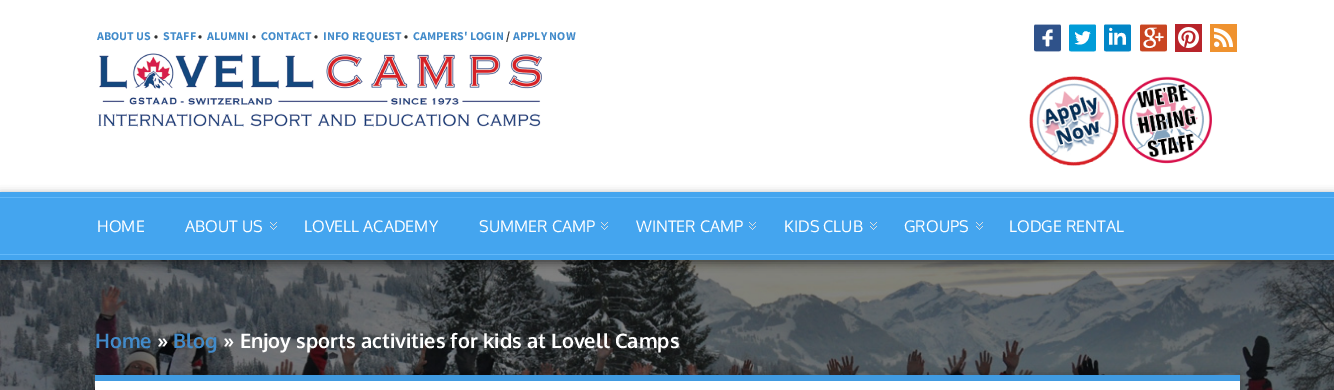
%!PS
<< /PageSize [1334 390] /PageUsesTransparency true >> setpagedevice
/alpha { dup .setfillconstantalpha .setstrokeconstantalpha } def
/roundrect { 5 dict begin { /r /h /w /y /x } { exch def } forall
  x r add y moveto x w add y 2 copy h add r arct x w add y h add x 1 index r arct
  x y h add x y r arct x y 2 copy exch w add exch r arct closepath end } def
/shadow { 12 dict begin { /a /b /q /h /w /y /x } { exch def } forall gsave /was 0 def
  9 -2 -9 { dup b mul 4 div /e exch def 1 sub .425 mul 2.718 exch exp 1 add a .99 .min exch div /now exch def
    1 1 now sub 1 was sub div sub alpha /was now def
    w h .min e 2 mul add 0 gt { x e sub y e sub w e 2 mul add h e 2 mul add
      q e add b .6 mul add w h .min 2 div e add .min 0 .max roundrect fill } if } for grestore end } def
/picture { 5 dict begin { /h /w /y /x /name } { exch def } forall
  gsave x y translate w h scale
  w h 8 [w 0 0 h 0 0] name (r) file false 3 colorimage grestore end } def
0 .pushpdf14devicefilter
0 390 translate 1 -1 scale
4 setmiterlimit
1 setgray
0 0 1334 390 rectfill
/SourceSansPro-Bold [12 0 0 -12 0 0] selectfont
0.259 0.545 0.792 setrgbcolor
97 40 moveto (ABOUT US) show
0.2 setgray
154 40 moveto (•) show
0.259 0.545 0.792 setrgbcolor
163 40 moveto (STAFF) show
0.2 setgray
198 40 moveto (•) show
0.259 0.545 0.792 setrgbcolor
207 40 moveto (ALUMNI) show
0.2 setgray
252 40 moveto (•) show
0.259 0.545 0.792 setrgbcolor
261 40 moveto (CONTACT) show
0.2 setgray
314 40 moveto (•) show
0.259 0.545 0.792 setrgbcolor
323 40 moveto (INFO REQUEST) show
0.2 setgray
404 40 moveto (•) show
0.259 0.545 0.792 setrgbcolor
413 40 moveto (CAMPERS' LOGIN) show
0.2 setgray
506 40 moveto (/) show
0.259 0.545 0.792 setrgbcolor
513 40 moveto (APPLY NOW) show
(img1.rgb) 98 53 444 74 picture
(img2.rgb) 1034 24 27 28 picture
(img3.rgb) 1069 24 27 28 picture
(img4.rgb) 1104 24 27 28 picture
(img5.rgb) 1140 24 27 28 picture
(img6.rgb) 1175 24 27 28 picture
(img7.rgb) 1210 24 27 28 picture
(img8.rgb) 1029 76 90 90 picture
(img9.rgb) 1122 76 90 88 picture
(img11.rgb) 0 260 1334 130 picture
0 setgray
0 195 1334 68 0 4.5 0.5 shadow
0.267 0.647 0.937 setrgbcolor
0 192 1334 68 rectfill
0.38 0.722 0.98 setrgbcolor
0 197 1334 1 rectfill
0 254 1334 1 rectfill
/Oxygen-Regular [16 0 0 -16 0 0] selectfont
1 setgray
97 232 moveto (HOME) show
(img10.rgb) 270 222 7 8 picture
185 232 moveto (ABOUT US) show
304 232 moveto (LOVELL ACADEMY) show
(img10.rgb) 601 222 7 8 picture
479 232 moveto (SUMMER CAMP) show
(img10.rgb) 749 222 7 8 picture
636 232 moveto (WINTER CAMP) show
(img10.rgb) 870 222 7 8 picture
784 232 moveto (KIDS CLUB) show
(img10.rgb) 976 222 7 8 picture
904 232 moveto (GROUPS) show
1009 232 moveto (LODGE RENTAL) show
/Oxygen-Bold [20 0 0 -20 0 0] selectfont
0.259 0.545 0.792 setrgbcolor
95 348 moveto (Home) show
1 setgray
157 348 moveto (») show
0.259 0.545 0.792 setrgbcolor
173 348 moveto (Blog) show
1 setgray
223 348 moveto (» Enjoy sports activities for kids at Lovell Camps) show
0 setgray
96 376 1143 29 0 5 0.4 shadow
1 setgray
95 381 1145 9 rectfill
0.251 0.608 0.882 setrgbcolor
95 375 1145 6 rectfill
.poppdf14devicefilter showpage
